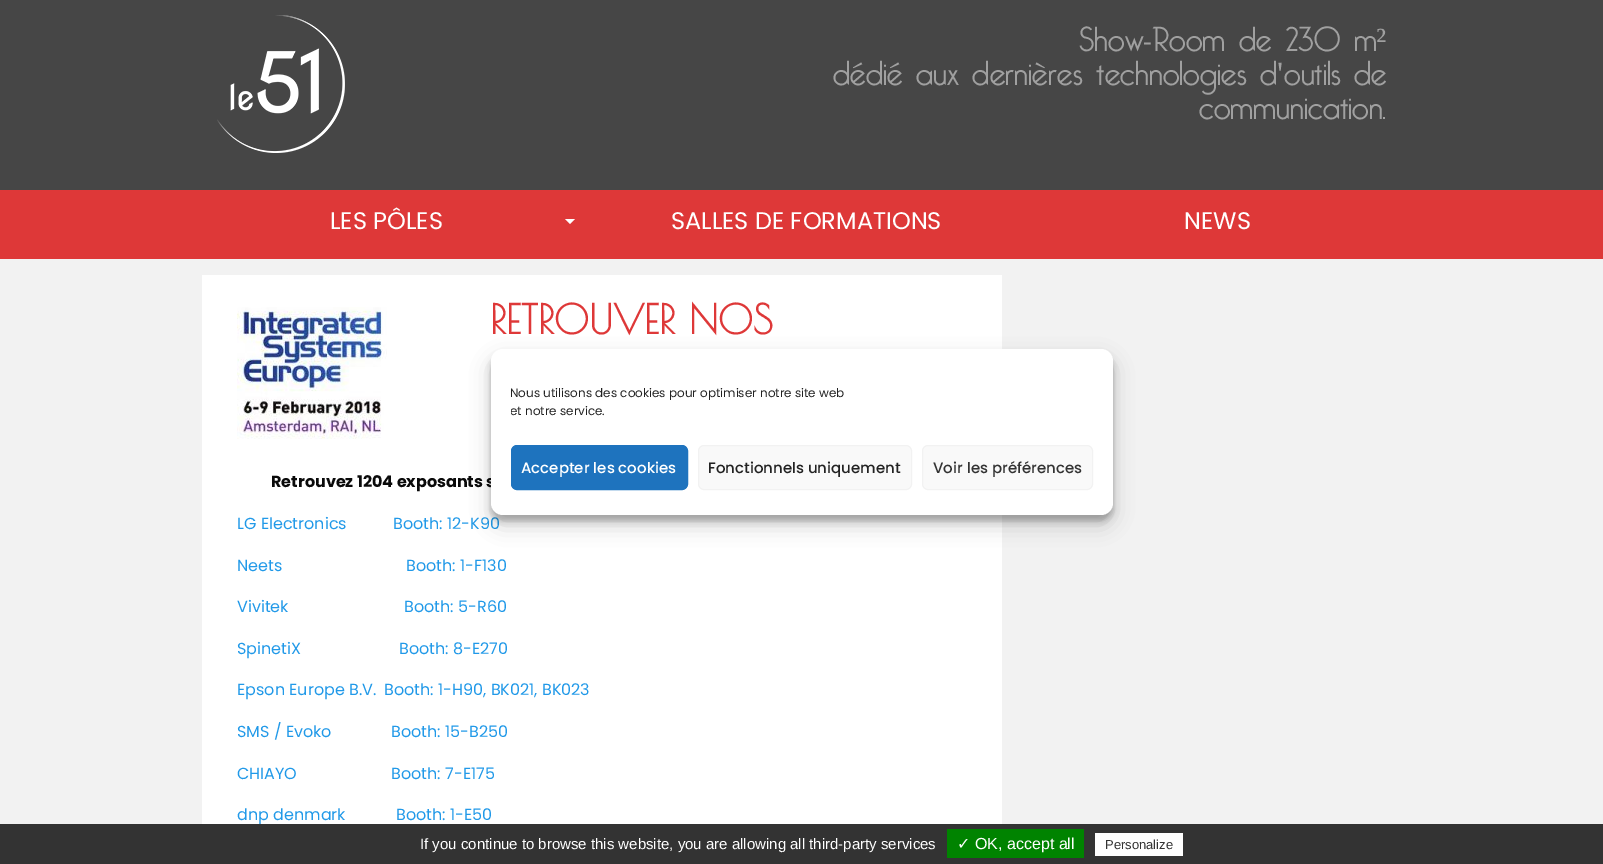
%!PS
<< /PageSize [1603 864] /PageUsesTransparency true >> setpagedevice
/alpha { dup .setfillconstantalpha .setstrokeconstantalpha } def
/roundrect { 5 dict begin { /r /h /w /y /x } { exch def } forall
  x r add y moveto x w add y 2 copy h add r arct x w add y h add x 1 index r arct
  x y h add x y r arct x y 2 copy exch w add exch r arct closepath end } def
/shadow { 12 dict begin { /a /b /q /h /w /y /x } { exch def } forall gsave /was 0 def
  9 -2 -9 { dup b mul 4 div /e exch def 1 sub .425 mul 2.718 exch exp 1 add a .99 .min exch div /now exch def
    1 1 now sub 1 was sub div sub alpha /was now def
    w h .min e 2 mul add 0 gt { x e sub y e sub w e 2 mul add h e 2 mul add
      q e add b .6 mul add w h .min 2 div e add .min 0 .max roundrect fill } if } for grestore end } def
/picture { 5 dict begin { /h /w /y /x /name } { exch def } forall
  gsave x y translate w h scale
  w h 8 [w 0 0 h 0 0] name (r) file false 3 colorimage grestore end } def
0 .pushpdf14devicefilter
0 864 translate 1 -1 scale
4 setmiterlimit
0.275 setgray
0 0 1603 864 rectfill
(img1.rgb) 217 15 128 138 picture
/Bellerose-Light [34 0 0 -34 0 0] selectfont
0.627 setgray
1079 51 moveto (Show-Room de 230 m) show
/LiberationSerif-Regular [34 0 0 -34 0 0] selectfont
1376 51 moveto (²) show
/Bellerose-Light [34 0 0 -34 0 0] selectfont
833 85 moveto (dédié aux dernières technologies d) show
/LiberationSerif-Regular [34 0 0 -34 0 0] selectfont
1277 85 moveto (') show
/Bellerose-Light [34 0 0 -34 0 0] selectfont
1284 85 moveto (outils de) show
1199 119 moveto (communication.) show
0.871 0.22 0.22 setrgbcolor
0 190 1603 69 rectfill
/Poppins-Regular [24 0 0 -24 0 0] selectfont
1 setgray
330 229 moveto (LES PÔLES) show
newpath 565 219 moveto 575 219 lineto 570 224 lineto closepath fill
671 229 moveto (SALLES DE FORMATIONS) show
1184 229 moveto (NEWS) show
0.949 setgray
0 259 1603 565 rectfill
1 setgray
202 275 800 549 rectfill
(img2.rgb) 237 307 150 132 picture
/PoiretOne-Bold [40 0 0 -40 0 0] selectfont
0.871 0.22 0.22 setrgbcolor
490 334 moveto (RETROUVER NOS) show
/Poppins-Bold [16 0 0 -16 0 0] selectfont
0.039 setgray
271 487 moveto (Retrouvez 1204 exposants s) show
/Poppins-Regular [16 0 0 -16 0 0] selectfont
0.129 0.6 0.91 setrgbcolor
237 529 moveto (LG Electronics) show
393 529 moveto (Booth: 12-K90) show
237 571 moveto (Neets) show
406 571 moveto (Booth: 1-F130) show
237 612 moveto (Vivitek) show
404 612 moveto (Booth: 5-R60) show
237 654 moveto (SpinetiX) show
399 654 moveto (Booth: 8-E270) show
237 695 moveto (Epson Europe B.V.) show
384 695 moveto (Booth: 1-H90, BK021, BK023) show
237 737 moveto (SMS / Evoko) show
391 737 moveto (Booth: 15-B250) show
237 779 moveto (CHIAYO) show
391 779 moveto (Booth: 7-E175) show
237 820 moveto (dnp denmark) show
396 820 moveto (Booth: 1-E50) show
0 setgray
491 355 622 166 12 3 0.23 shadow
491 359 622 166 12 10 0.19 shadow
1 setgray
491 349 622 166 12 roundrect fill
/Poppins-Regular [12 0 0 -12 0 0] selectfont
0.133 setgray
510 397 moveto (Nous utilisons des cookies pour optimiser notre site web) show
gsave
511 384 582 41 rectclip
510 415 moveto (et notre service.) show
grestore
0.118 0.451 0.745 setrgbcolor
511.5 445.5 176 44 5.5 roundrect gsave fill grestore
stroke
/Poppins-Medium [15 0 0 -15 0 0] selectfont
1 setgray
521 473 moveto (Accepter les cookies) show
0.976 setgray
698.5 445.5 213 44 5.5 roundrect gsave fill grestore
0.949 setgray
stroke
0.133 setgray
708 473 moveto (Fonctionnels uniquement) show
0.976 setgray
922.5 445.5 170 44 5.5 roundrect gsave fill grestore
0.949 setgray
stroke
0.2 setgray
933 473 moveto (Voir les préférences) show
0 824 1603 40 rectfill
/LiberationSans-Regular [15 0 0 -15 0 0] selectfont
1 setgray
420 849 moveto (If you continue to browse this website, you are allowing all third-party services) show
0 0.514 0 setrgbcolor
947 829 137 29 rectfill
/DejaVuSans-Regular [16 0 0 -16 0 0] selectfont
1 setgray
957 849 moveto (✓) show
/LiberationSans-Regular [16 0 0 -16 0 0] selectfont
975 849 moveto (OK, accept all) show
1095 833 88 23 rectfill
/LiberationSans-Regular [13 0 0 -13 0 0] selectfont
0.2 setgray
1105 849 moveto (Personalize) show
.poppdf14devicefilter showpage
